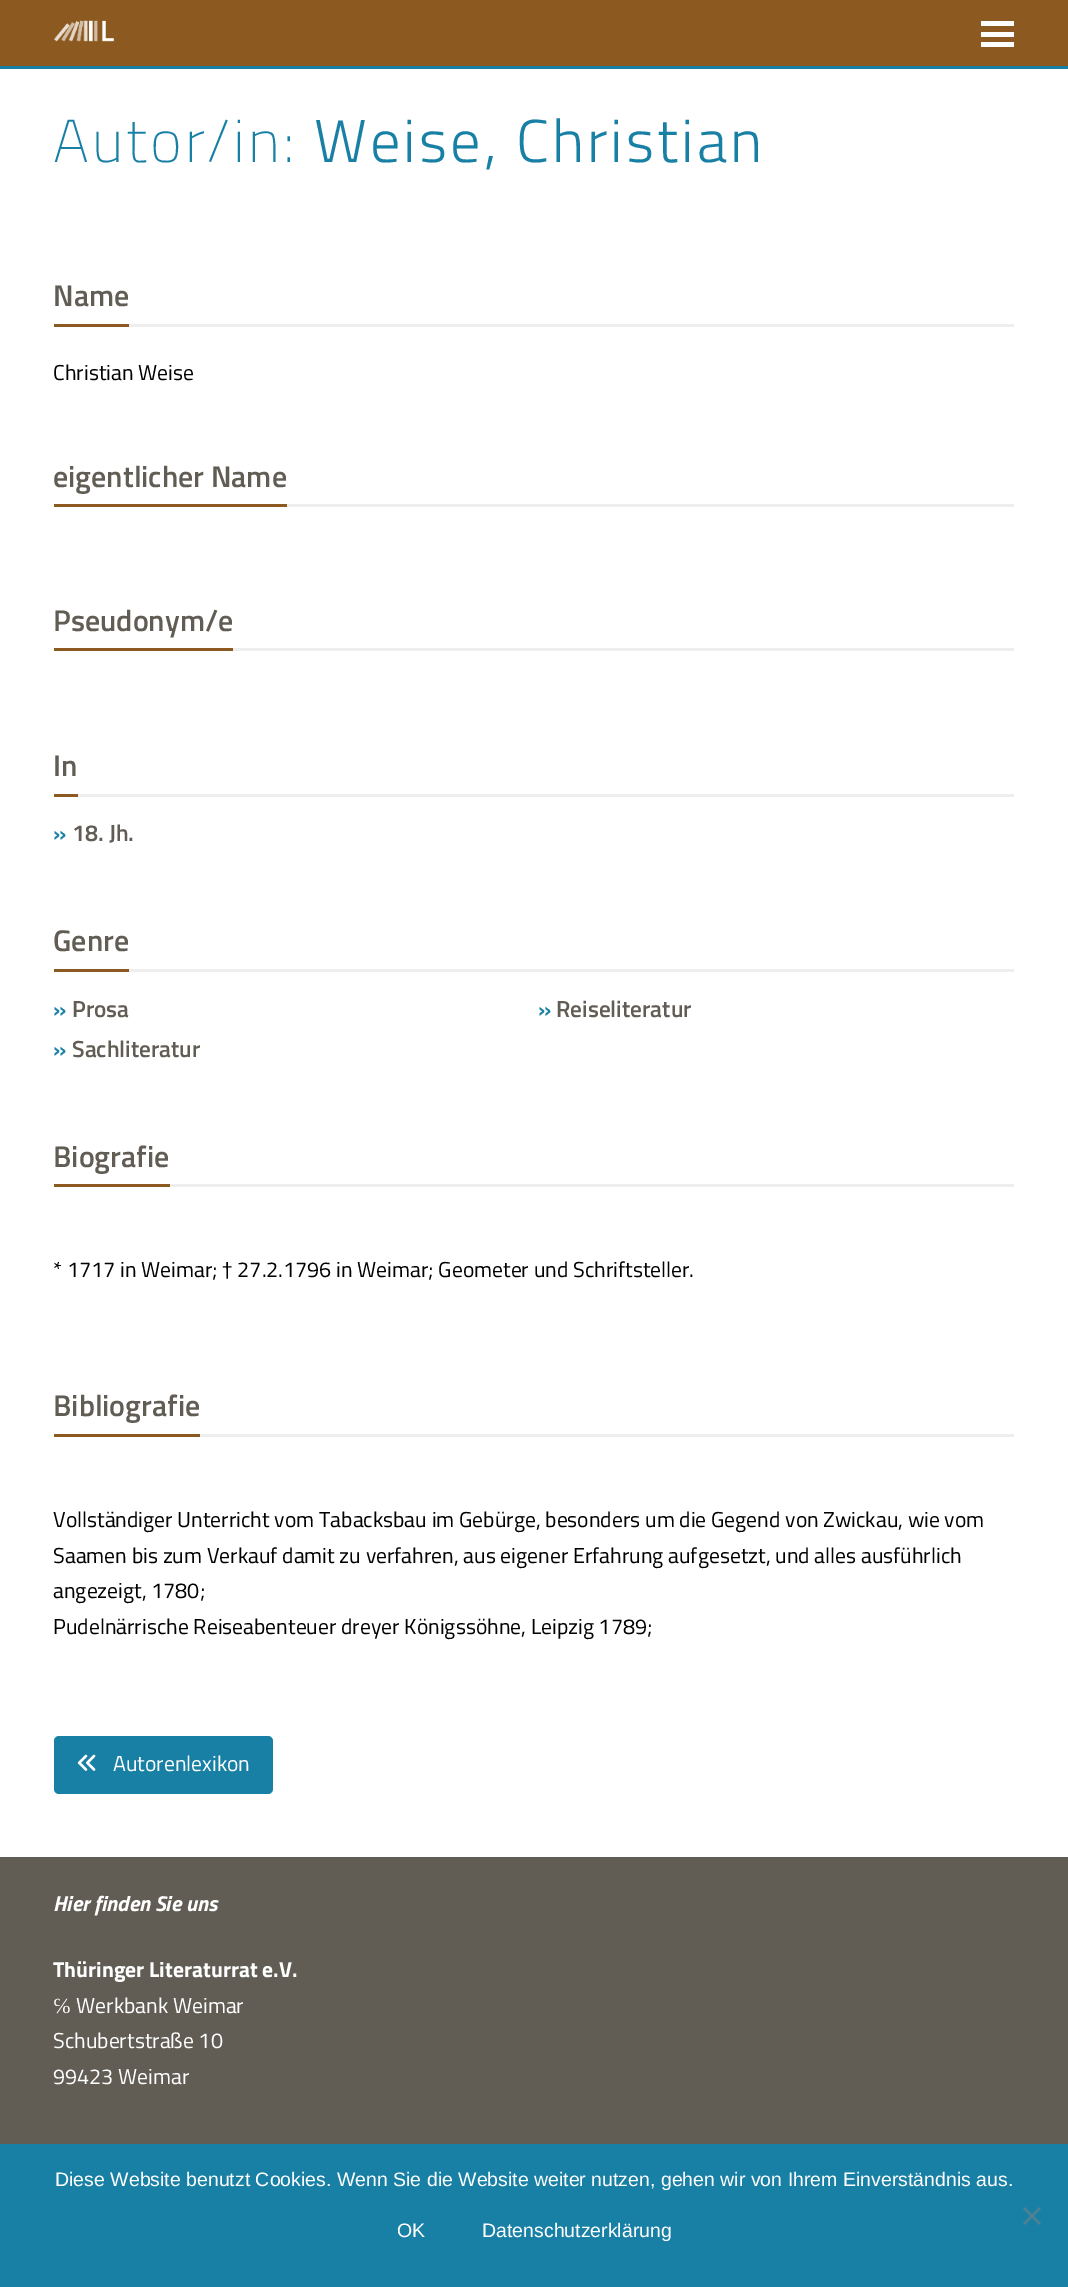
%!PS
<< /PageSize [1068 2287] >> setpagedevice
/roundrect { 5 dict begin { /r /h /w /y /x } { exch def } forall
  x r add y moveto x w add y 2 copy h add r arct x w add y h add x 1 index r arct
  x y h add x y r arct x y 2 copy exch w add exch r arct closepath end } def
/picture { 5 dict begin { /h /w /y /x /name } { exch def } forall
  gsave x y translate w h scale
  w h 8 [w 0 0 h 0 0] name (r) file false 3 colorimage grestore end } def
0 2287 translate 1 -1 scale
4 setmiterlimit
1 setgray
0 0 1068 2287 rectfill
0.549 0.349 0.125 setrgbcolor
0 0 1068 66 rectfill
0.094 0.502 0.647 setrgbcolor
0 66 1068 3 rectfill
(img1.rgb) 54 20 60 22 picture
1 setgray
981 32 33 5 rectfill
981 21 33 5 rectfill
981 42 33 5 rectfill
/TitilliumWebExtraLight-ExtraLight [60.5 0 0 -60.5 0 0] selectfont
0.094 0.502 0.647 setrgbcolor
53 162 moveto 3 0 (Autor/in:) ashow
/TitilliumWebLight-Light [60.5 0 0 -60.5 0 0] selectfont
314 162 moveto 3 0 (Weise, Christian) ashow
0.933 setgray
129 324 885 3 rectfill
0.549 0.349 0.125 setrgbcolor
54 324 75 3 rectfill
/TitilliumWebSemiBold-SemiBold [30 0 0 -30 0 0] selectfont
0.38 0.365 0.333 setrgbcolor
53 306 moveto (Name) show
/TitilliumWeb-Regular [21.6 0 0 -21.6 0 0] selectfont
0 setgray
53 380 moveto (Christian Weise) show
0.933 setgray
287 504 727 3 rectfill
0.549 0.349 0.125 setrgbcolor
54 504 233 3 rectfill
/TitilliumWebSemiBold-SemiBold [30 0 0 -30 0 0] selectfont
0.38 0.365 0.333 setrgbcolor
53 487 moveto (eigentlicher Name) show
0.933 setgray
233 648 781 3 rectfill
0.549 0.349 0.125 setrgbcolor
54 648 179 3 rectfill
0.38 0.365 0.333 setrgbcolor
53 631 moveto (Pseudonym/e) show
0.933 setgray
78 794 936 3 rectfill
0.549 0.349 0.125 setrgbcolor
54 794 24 3 rectfill
0.38 0.365 0.333 setrgbcolor
53 776 moveto (In) show
/TitilliumWebSemiBold-SemiBold [23.25 0 0 -23.25 0 0] selectfont
0.094 0.502 0.647 setrgbcolor
53 841 moveto (») show
0.38 0.365 0.333 setrgbcolor
72 841 moveto (18. Jh.) show
0.933 setgray
129 969 885 3 rectfill
0.549 0.349 0.125 setrgbcolor
54 969 75 3 rectfill
/TitilliumWebSemiBold-SemiBold [30 0 0 -30 0 0] selectfont
0.38 0.365 0.333 setrgbcolor
53 951 moveto (Genre) show
/TitilliumWebSemiBold-SemiBold [23.25 0 0 -23.25 0 0] selectfont
0.094 0.502 0.647 setrgbcolor
53 1017 moveto (») show
0.38 0.365 0.333 setrgbcolor
72 1017 moveto (Prosa) show
0.094 0.502 0.647 setrgbcolor
538 1017 moveto (») show
0.38 0.365 0.333 setrgbcolor
556 1017 moveto (Reiseliteratur) show
0.094 0.502 0.647 setrgbcolor
53 1057 moveto (») show
0.38 0.365 0.333 setrgbcolor
72 1057 moveto (Sachliteratur) show
0.933 setgray
170 1184 844 3 rectfill
0.549 0.349 0.125 setrgbcolor
54 1184 116 3 rectfill
/TitilliumWebSemiBold-SemiBold [30 0 0 -30 0 0] selectfont
0.38 0.365 0.333 setrgbcolor
53 1167 moveto (Biografie) show
/TitilliumWeb-Regular [21.6 0 0 -21.6 0 0] selectfont
0 setgray
53 1277 moveto (* 1717 in Weimar; † 27.2.1796 in Weimar; Geometer und Schriftsteller.) show
0.933 setgray
200 1434 814 3 rectfill
0.549 0.349 0.125 setrgbcolor
54 1434 146 3 rectfill
/TitilliumWebSemiBold-SemiBold [30 0 0 -30 0 0] selectfont
0.38 0.365 0.333 setrgbcolor
53 1416 moveto (Bibliografie) show
/TitilliumWeb-Regular [21.6 0 0 -21.6 0 0] selectfont
0 setgray
53 1527 moveto (Vollständiger Unterricht vom Tabacksbau im Gebürge, besonders um die Gegend von Zwickau, wie vom) show
53 1563 moveto (Saamen bis zum Verkauf damit zu verfahren, aus eigener Erfahrung aufgesetzt, und alles ausführlich) show
53 1598 moveto (angezeigt, 1780;) show
53 1634 moveto (Pudelnärrische Reiseabenteuer dreyer Königssöhne, Leipzig 1789;) show
0.094 0.502 0.647 setrgbcolor
54 1736 219 58 5 roundrect fill
(img2.rgb) 77 1754 19 17 picture
1 setgray
113 1771 moveto (Autorenlexikon) show
0.38 0.365 0.333 setrgbcolor
0 1857 1068 287 rectfill
/TitilliumWeb-BoldItalic [21.6 0 0 -21.6 0 0] selectfont
1 setgray
53 1911 moveto (Hier finden Sie uns) show
/TitilliumWeb-Bold [21.6 0 0 -21.6 0 0] selectfont
53 1977 moveto (Thüringer Literaturrat e.V.) show
/LiberationSerif-Regular [21.6 0 0 -21.6 0 0] selectfont
53 2013 moveto (℅) show
/TitilliumWeb-Regular [21.6 0 0 -21.6 0 0] selectfont
76 2013 moveto (Werkbank Weimar) show
53 2048 moveto (Schubertstraße 10) show
53 2084 moveto (99423 Weimar) show
0.094 0.502 0.647 setrgbcolor
0 2144 1068 143 rectfill
/LiberationSans-Regular [19.5 0 0 -19.5 0 0] selectfont
1 setgray
55 2186 moveto (Diese Website benutzt Cookies. Wenn Sie die Website weiter nutzen, gehen wir von Ihrem Einverständnis aus.) show
0.298 0.502 0.576 setrgbcolor
newpath 1039 2207 moveto 1041 2209 lineto 1025 2225 lineto 1023 2223 lineto closepath fill
newpath 1023 2209 moveto 1025 2207 lineto 1041 2223 lineto 1039 2225 lineto closepath fill
1 setgray
397 2237 moveto (OK) show
482 2237 moveto (Datenschutzerklärung) show
showpage
